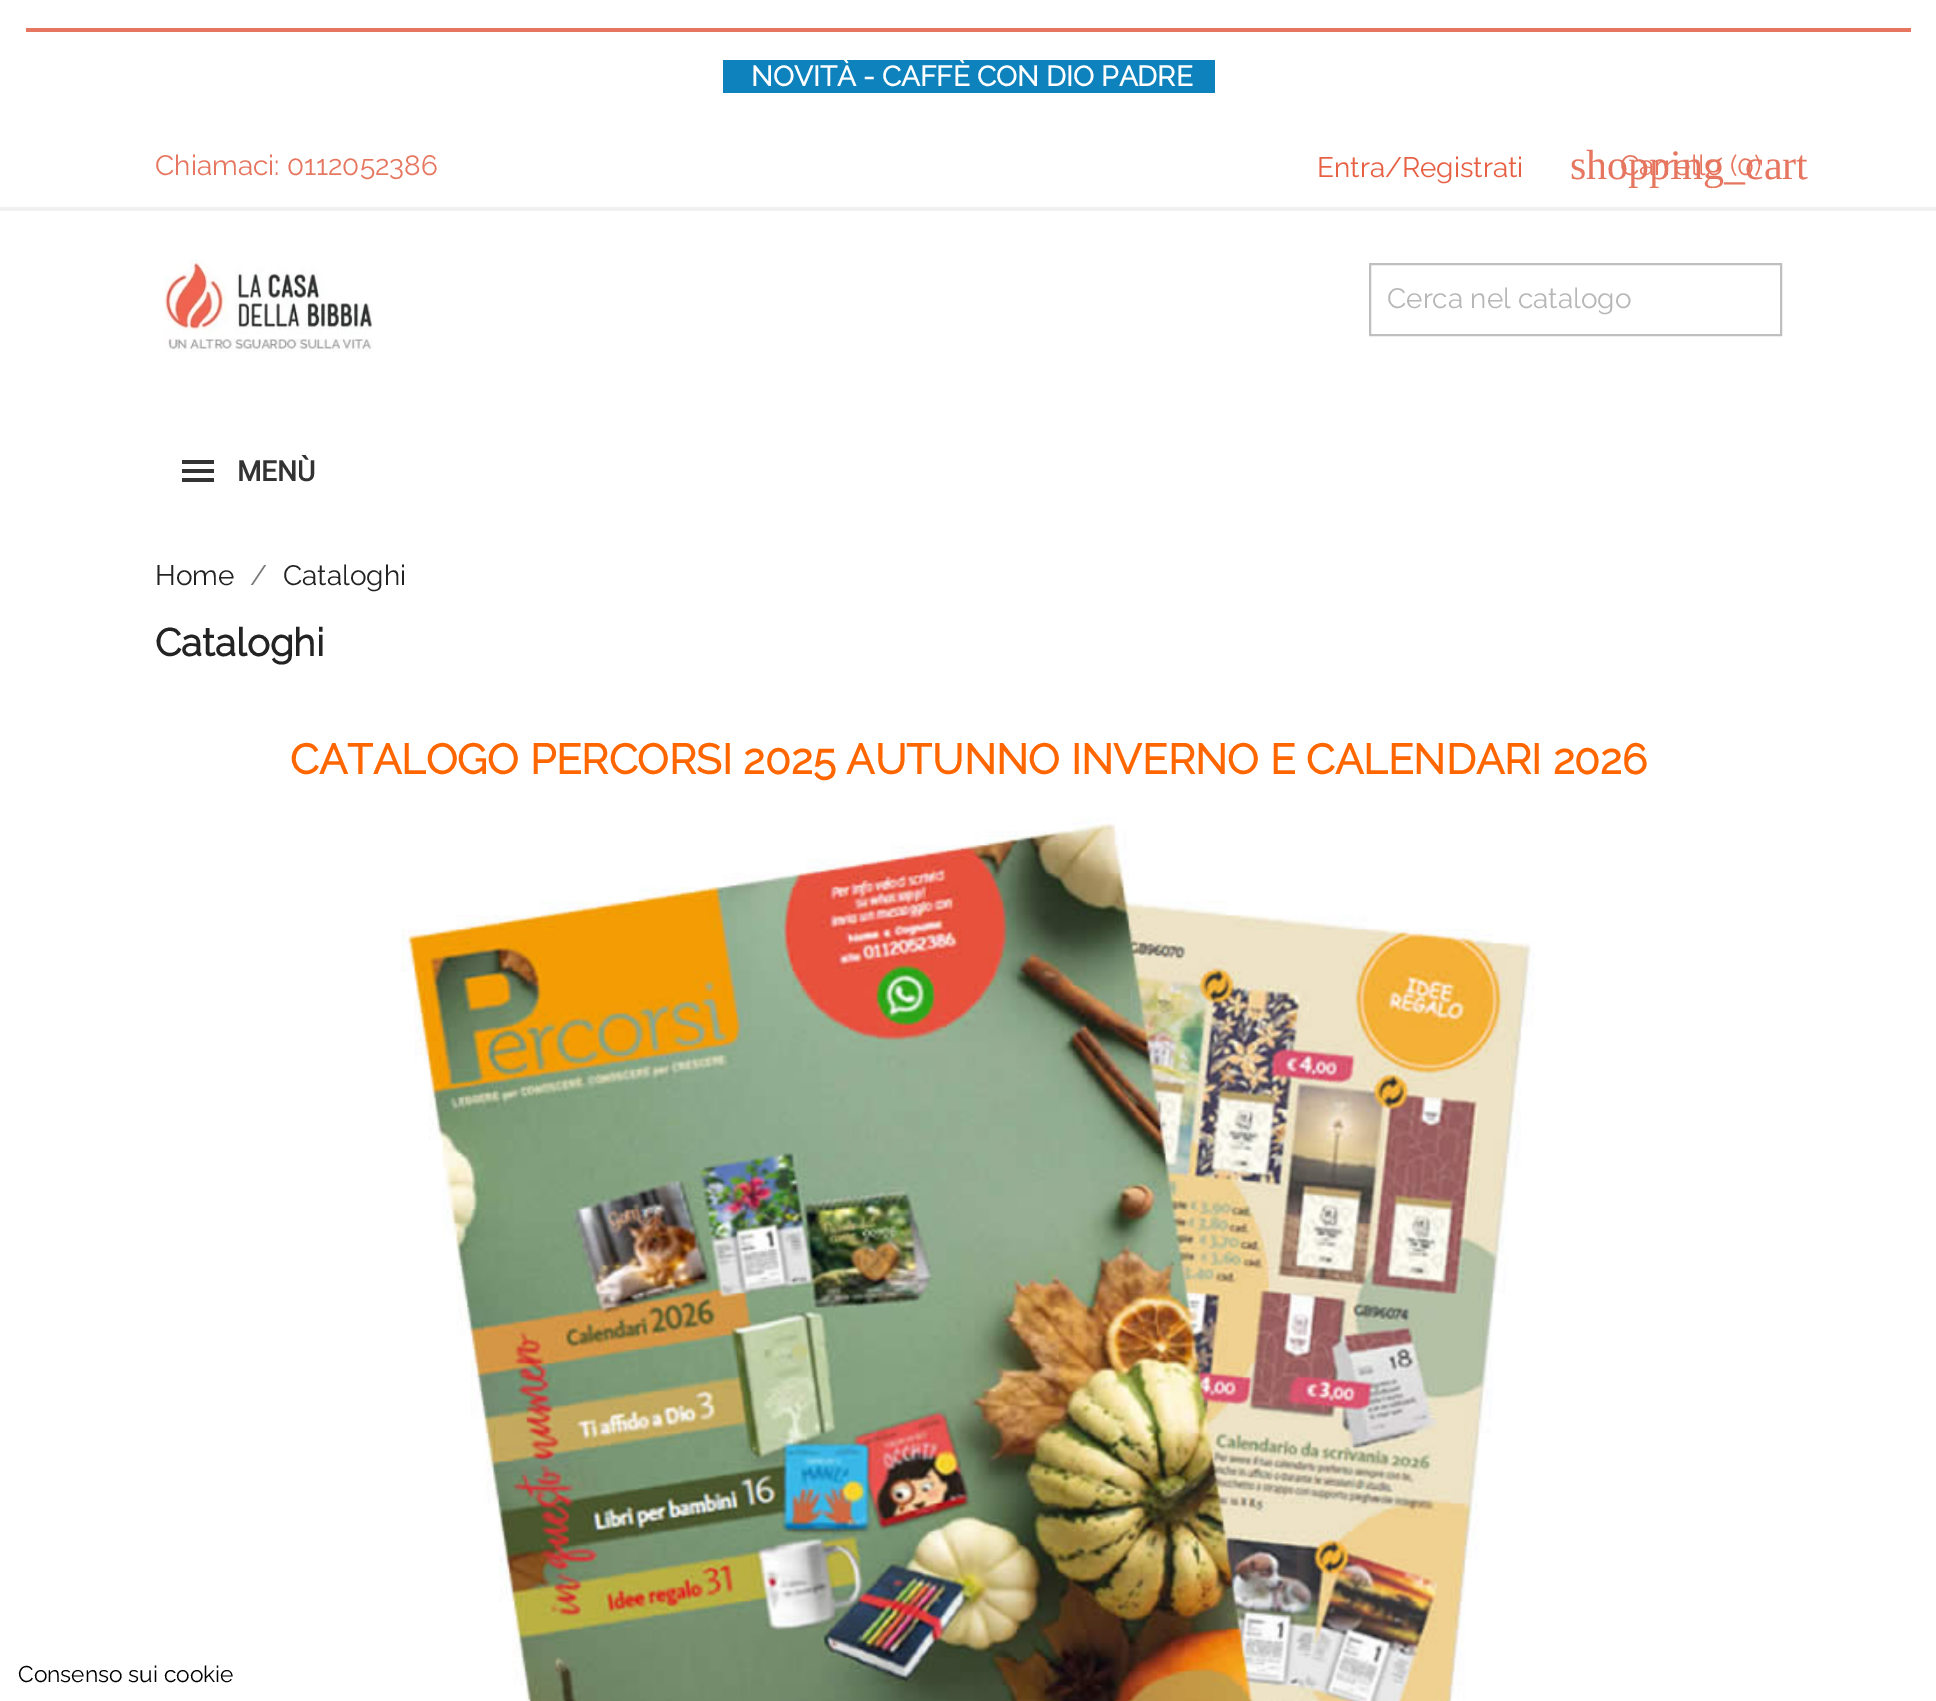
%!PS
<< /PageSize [1936 1701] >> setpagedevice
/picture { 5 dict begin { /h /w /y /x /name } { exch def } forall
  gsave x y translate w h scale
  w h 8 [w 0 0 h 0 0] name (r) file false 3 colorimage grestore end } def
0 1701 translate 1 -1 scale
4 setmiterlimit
1 setgray
0 0 1936 1701 rectfill
0.902 0.463 0.373 setrgbcolor
26 28 1885 4 rectfill
0.051 0.51 0.737 setrgbcolor
723 60 492 33 rectfill
/Raleway-Bold [28 0 0 -28 0 0] selectfont
1 setgray
751 86 moveto (NOVITÀ - CAFFÈ CON DIO PADRE) show
0.945 setgray
0 207 1936 4 rectfill
/Raleway-Thin [28 0 0 -28 0 0] selectfont
0.902 0.463 0.373 setrgbcolor
155 175 moveto (Chiamaci: 0112052386) show
0.91 0.376 0.267 setrgbcolor
1317 177 moveto (Entra/Registrati) show
/LiberationSerif-Regular [42 0 0 -42 0 0] selectfont
0.902 0.463 0.373 setrgbcolor
1570 179 moveto (shopping_cart) show
/Raleway-Thin [28 0 0 -28 0 0] selectfont
1620 175 moveto (Carrello \(0\)) show
(img1.rgb) 164 259 209 93 picture
0.749 setgray
2 setlinewidth
1370 264 411 71 rectstroke
0.718 setgray
1387 308 moveto (Cerca nel catalogo) show
0.2 setgray
182 460 32 4 rectfill
182 469 32 4 rectfill
182 478 32 4 rectfill
/Roboto-Bold [28 0 0 -28 0 0] selectfont
237 481 moveto (MENÙ) show
/Raleway-Thin [28 0 0 -28 0 0] selectfont
0.137 setgray
155 585 moveto (Home) show
0.478 setgray
250 585 moveto (/) show
0.137 setgray
283 585 moveto (Cataloghi) show
/Raleway-Bold [38.5 0 0 -38.5 0 0] selectfont
155 656 moveto (Cataloghi) show
/Raleway-Bold [42 0 0 -42 0 0] selectfont
1 0.4 0 setrgbcolor
290 774 moveto (CATALOGO PERCORSI 2025 AUTUNNO INVERNO E CALENDARI 2026) show
(img2.rgb) 401 817 1134 884 picture
/Raleway-Thin [22.75 0 0 -22.75 0 0] selectfont
0 setgray
18 1682 moveto (Consenso sui cookie) show
showpage
